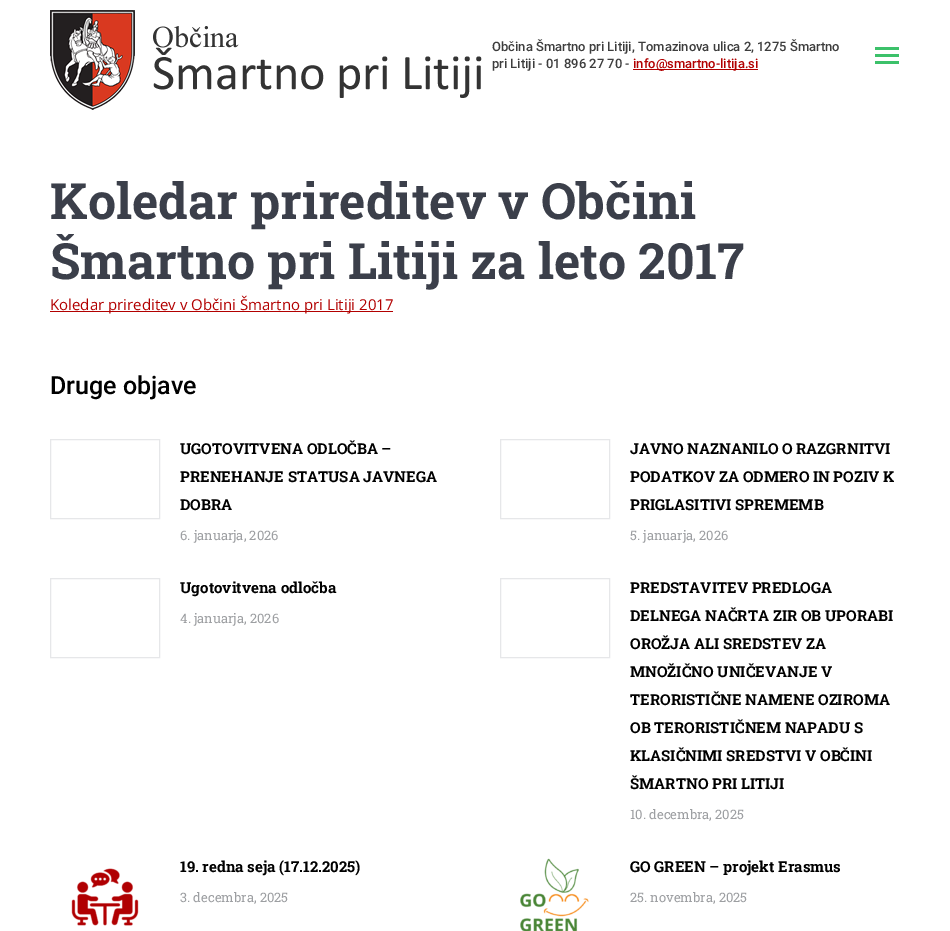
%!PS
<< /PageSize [950 931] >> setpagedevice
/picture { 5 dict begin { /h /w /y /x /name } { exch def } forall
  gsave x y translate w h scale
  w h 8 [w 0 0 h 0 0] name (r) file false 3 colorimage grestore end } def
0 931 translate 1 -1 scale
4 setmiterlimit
1 setgray
0 0 950 931 rectfill
(img1.rgb) 50 10 432 100 picture
/Roboto-Medium [13 0 0 -13 0 0] selectfont
0.239 setgray
492 51 moveto (Občina Šmartno pri Litiji, Tomazinova ulica 2, 1275 Šmartno) show
492 68 moveto (pri Litiji - 01 896 27 70 -) show
0.698 0 0 setrgbcolor
633 69 125 1 rectfill
633 68 moveto (info@smartno-litija.si) show
0.235 0.757 0.416 setrgbcolor
875 47 24 3 rectfill
875 54 24 3 rectfill
875 61 24 3 rectfill
/RobotoSlab-Bold [50 0 0 -50 0 0] selectfont
0.231 0.247 0.29 setrgbcolor
50 219 moveto (Koledar prireditev v Občini) show
50 279 moveto (Šmartno pri Litiji za leto 2017) show
0.698 0 0 setrgbcolor
50 311 343 1 rectfill
/OpenSans-Regular [15 0 0 -15 0 0] selectfont
50 310 moveto (Koledar prireditev v Občini Šmartno pri Litiji 2017) show
/Roboto-Medium [25 0 0 -25 0 0] selectfont
0 setgray
50 394 moveto (Druge objave) show
0.902 0.906 0.914 setrgbcolor
50.5 439.5 109 79 rectstroke
/RobotoSlab-Bold [15 0 0 -15 0 0] selectfont
0 setgray
180 454 moveto (UGOTOVITVENA ODLOČBA –) show
180 482 moveto (PRENEHANJE STATUSA JAVNEGA) show
180 510 moveto (DOBRA) show
/RobotoSlab-Regular [13 0 0 -13 0 0] selectfont
0.616 0.624 0.635 setrgbcolor
180 540 moveto (6. januarja, 2026) show
0.902 0.906 0.914 setrgbcolor
500.5 439.5 109 79 rectstroke
/RobotoSlab-Bold [15 0 0 -15 0 0] selectfont
0 setgray
630 454 moveto (JAVNO NAZNANILO O RAZGRNITVI) show
630 482 moveto (PODATKOV ZA ODMERO IN POZIV K) show
630 510 moveto (PRIGLASITIVI SPREMEMB) show
/RobotoSlab-Regular [13 0 0 -13 0 0] selectfont
0.616 0.624 0.635 setrgbcolor
630 540 moveto (5. januarja, 2026) show
0.902 0.906 0.914 setrgbcolor
50.5 578.5 109 79 rectstroke
/RobotoSlab-Bold [15 0 0 -15 0 0] selectfont
0 setgray
180 593 moveto (Ugotovitvena odločba) show
/RobotoSlab-Regular [13 0 0 -13 0 0] selectfont
0.616 0.624 0.635 setrgbcolor
180 623 moveto (4. januarja, 2026) show
0.902 0.906 0.914 setrgbcolor
500.5 578.5 109 79 rectstroke
/RobotoSlab-Bold [15 0 0 -15 0 0] selectfont
0 setgray
630 593 moveto (PREDSTAVITEV PREDLOGA) show
630 621 moveto (DELNEGA NAČRTA ZIR OB UPORABI) show
630 649 moveto (OROŽJA ALI SREDSTEV ZA) show
630 677 moveto (MNOŽIČNO UNIČEVANJE V) show
630 705 moveto (TERORISTIČNE NAMENE OZIROMA) show
630 733 moveto (OB TERORISTIČNEM NAPADU S) show
630 761 moveto (KLASIČNIMI SREDSTVI V OBČINI) show
630 789 moveto (ŠMARTNO PRI LITIJI) show
/RobotoSlab-Regular [13 0 0 -13 0 0] selectfont
0.616 0.624 0.635 setrgbcolor
630 819 moveto (10. decembra, 2025) show
(img2.rgb) 71 868 68 58 picture
/RobotoSlab-Bold [15 0 0 -15 0 0] selectfont
0 setgray
180 872 moveto (19. redna seja \(17.12.2025\)) show
/RobotoSlab-Regular [13 0 0 -13 0 0] selectfont
0.616 0.624 0.635 setrgbcolor
180 902 moveto (3. decembra, 2025) show
(img3.rgb) 520 858 69 73 picture
/RobotoSlab-Bold [15 0 0 -15 0 0] selectfont
0 setgray
630 872 moveto (GO GREEN – projekt Erasmus) show
/RobotoSlab-Regular [13 0 0 -13 0 0] selectfont
0.616 0.624 0.635 setrgbcolor
630 902 moveto (25. novembra, 2025) show
showpage
